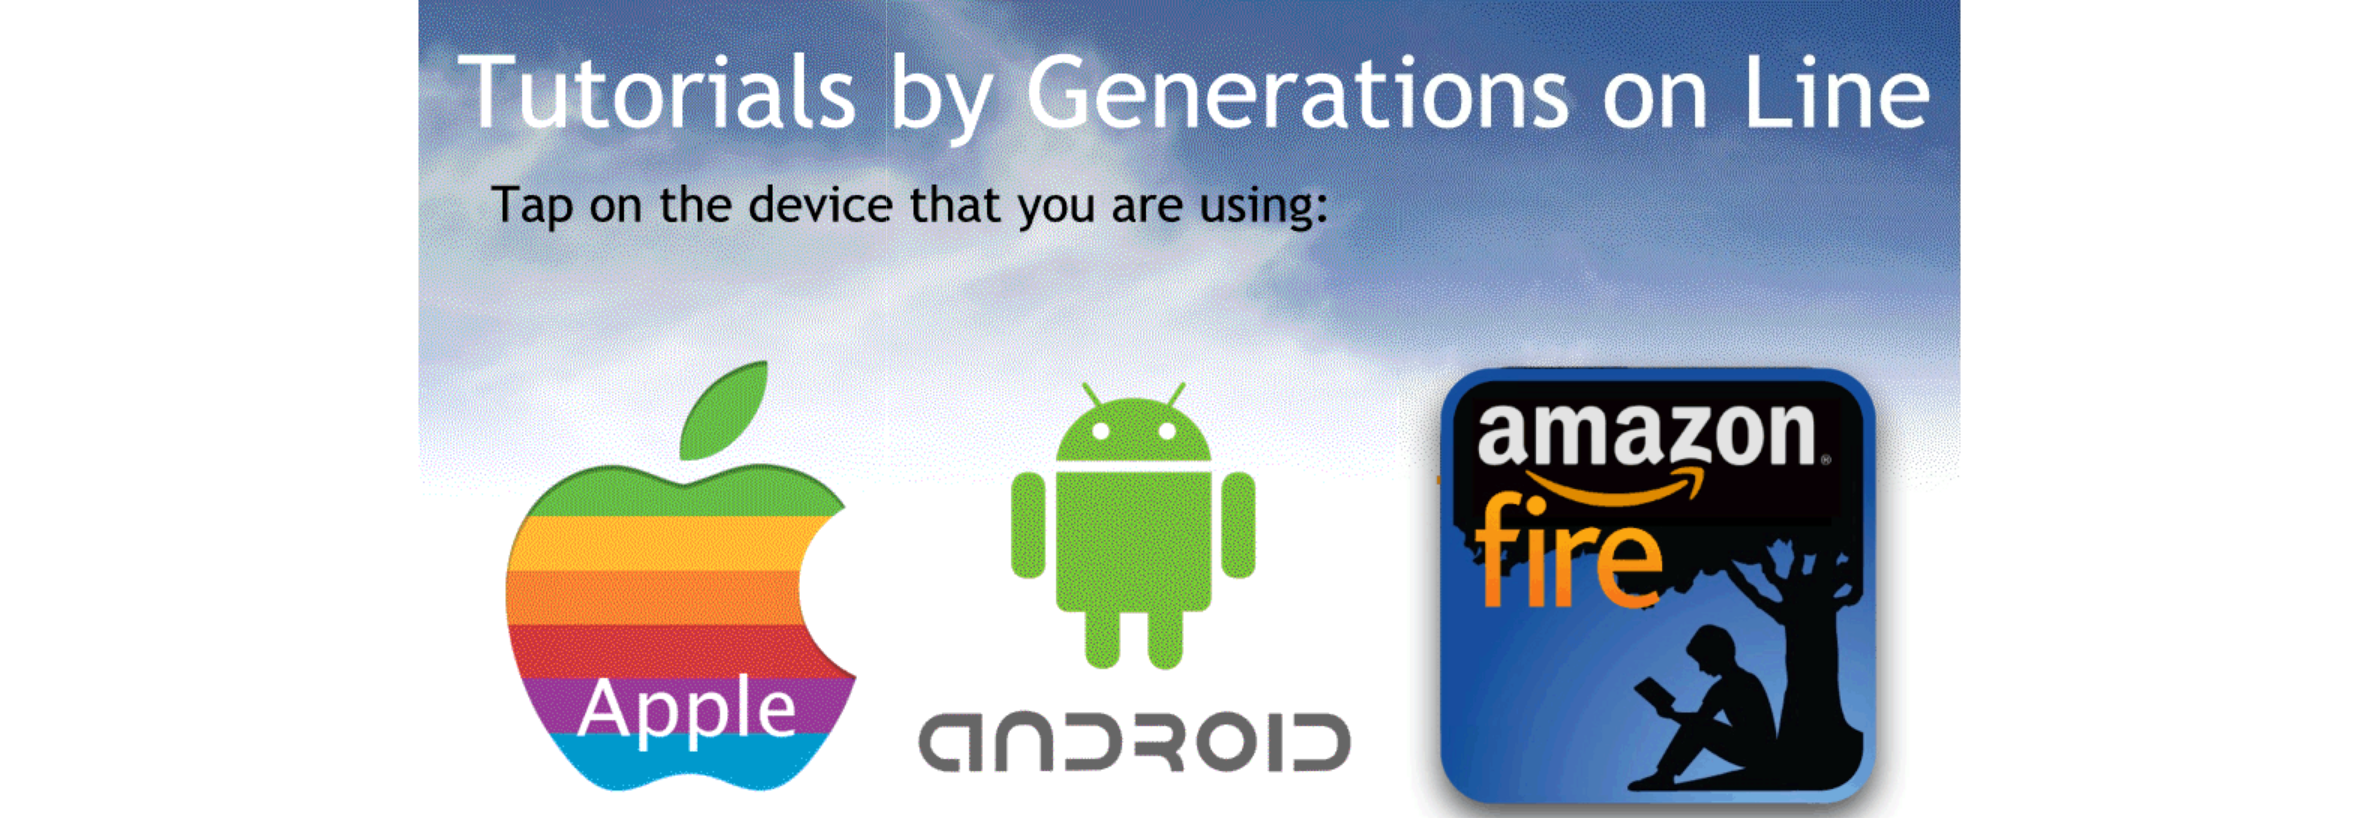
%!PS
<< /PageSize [2379 818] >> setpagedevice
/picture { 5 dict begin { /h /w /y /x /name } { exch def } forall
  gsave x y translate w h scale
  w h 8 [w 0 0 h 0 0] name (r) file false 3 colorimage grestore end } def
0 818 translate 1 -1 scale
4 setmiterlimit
1 setgray
0 0 2379 818 rectfill
(img1.rgb) 418 0 469 793 picture
(img2.rgb) 886 0 512 773 picture
(img3.rgb) 1398 0 563 818 picture
showpage
